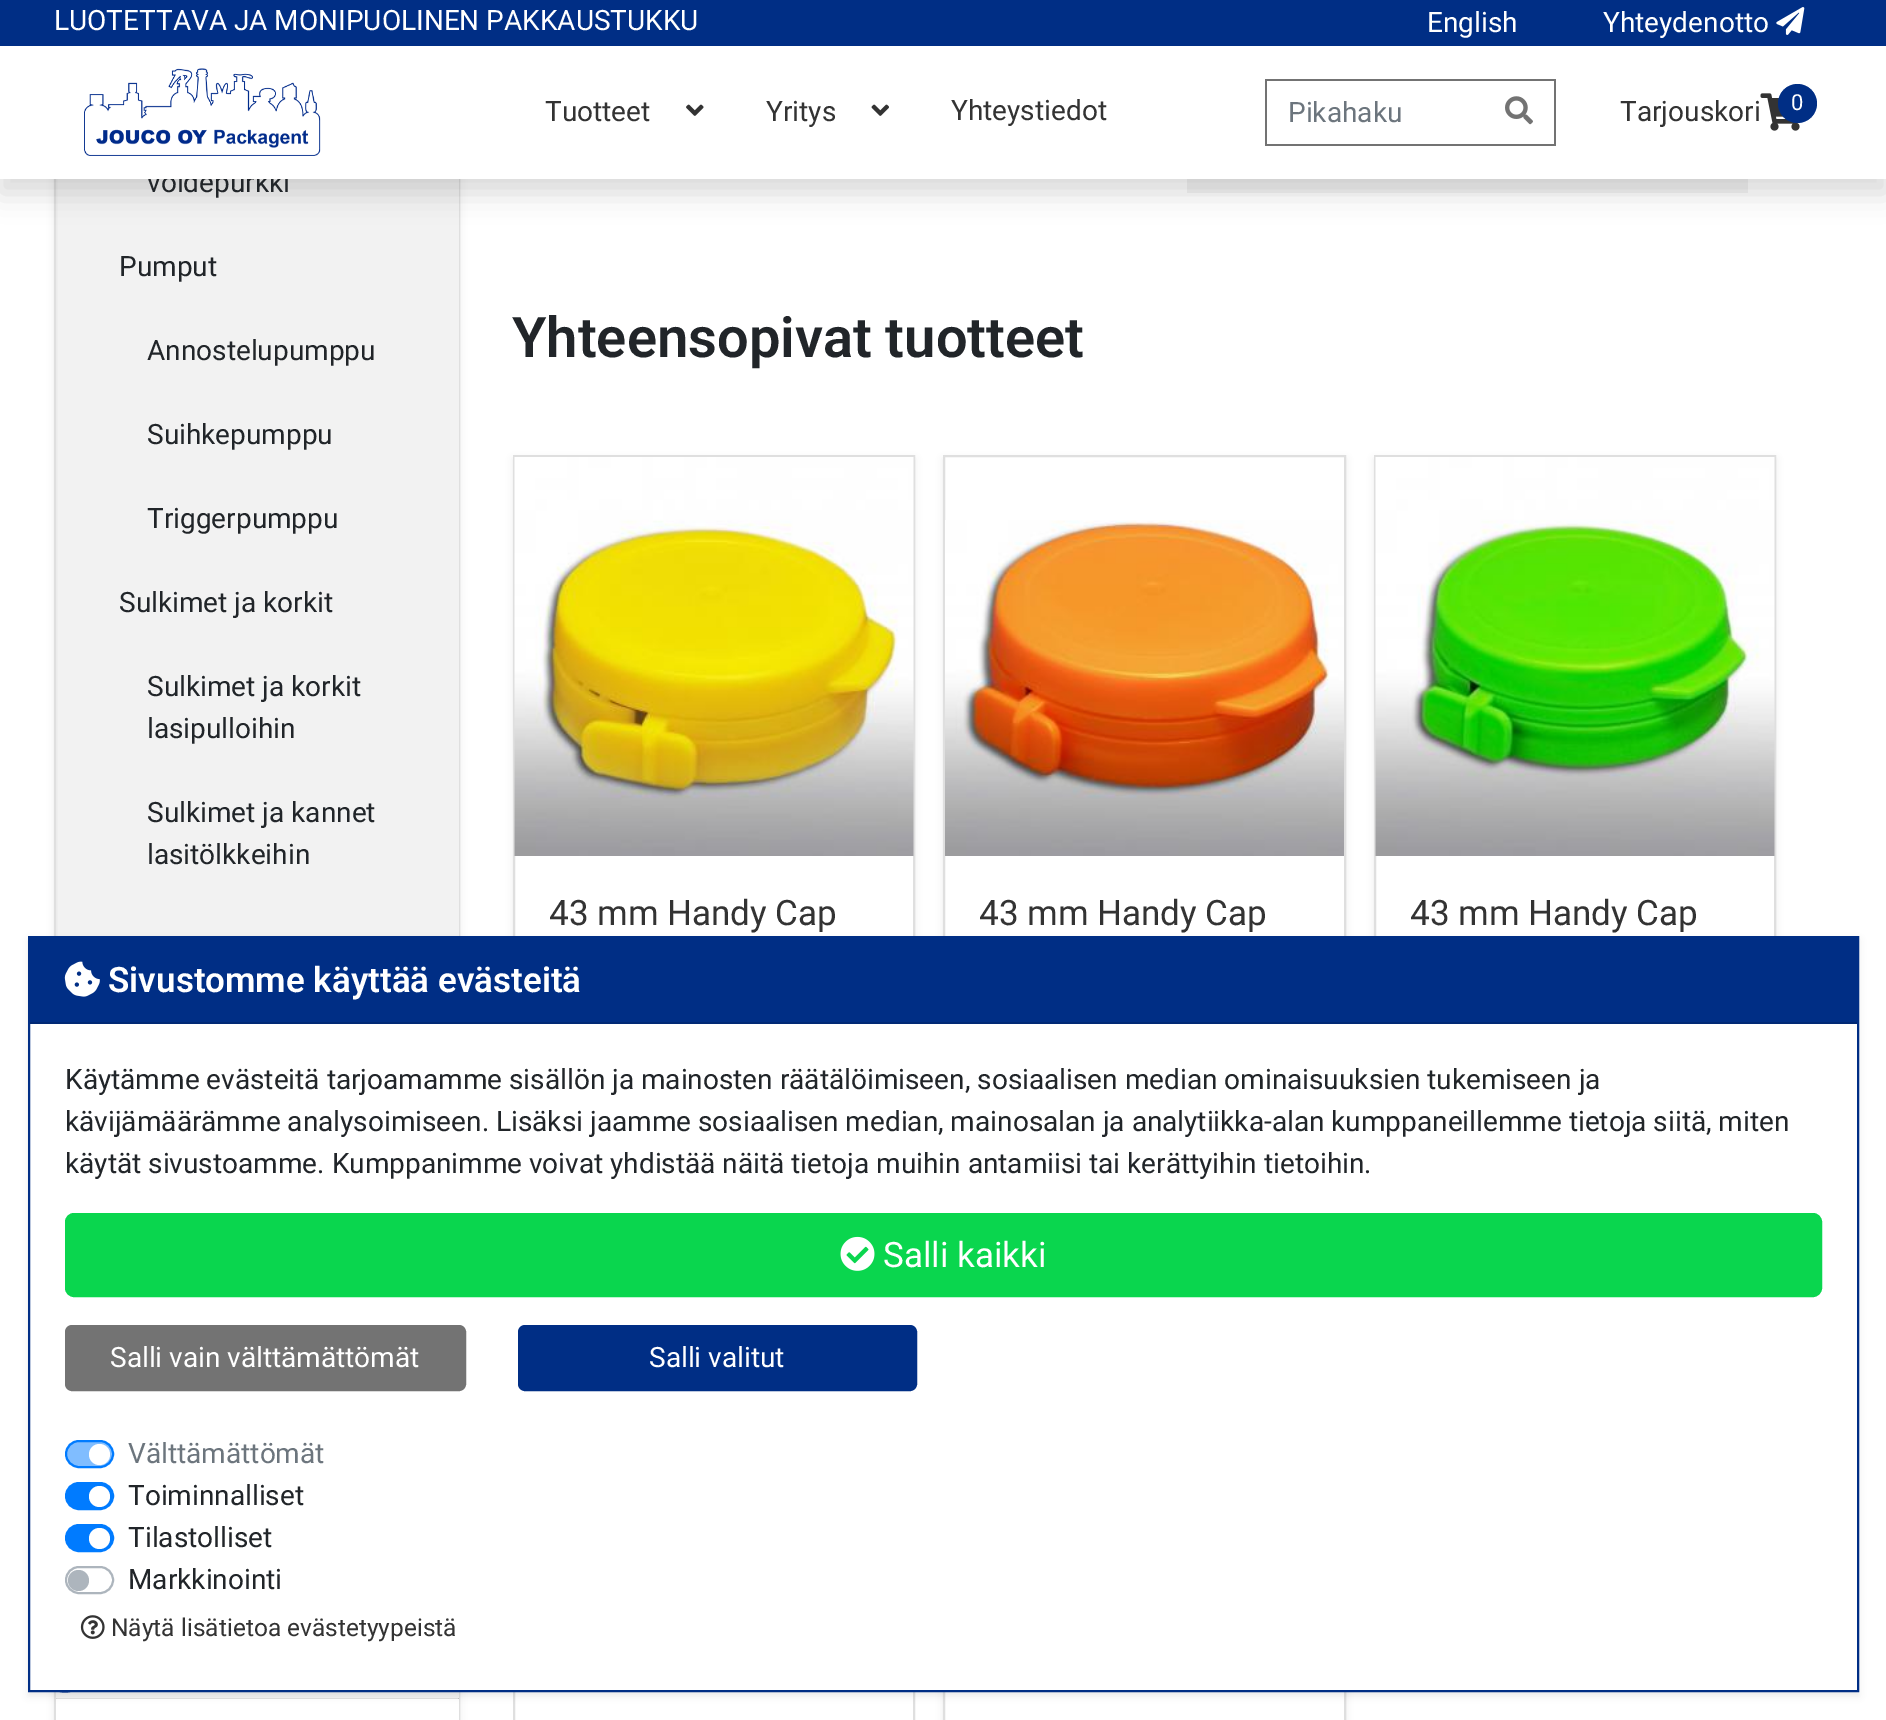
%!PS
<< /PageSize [1886 1720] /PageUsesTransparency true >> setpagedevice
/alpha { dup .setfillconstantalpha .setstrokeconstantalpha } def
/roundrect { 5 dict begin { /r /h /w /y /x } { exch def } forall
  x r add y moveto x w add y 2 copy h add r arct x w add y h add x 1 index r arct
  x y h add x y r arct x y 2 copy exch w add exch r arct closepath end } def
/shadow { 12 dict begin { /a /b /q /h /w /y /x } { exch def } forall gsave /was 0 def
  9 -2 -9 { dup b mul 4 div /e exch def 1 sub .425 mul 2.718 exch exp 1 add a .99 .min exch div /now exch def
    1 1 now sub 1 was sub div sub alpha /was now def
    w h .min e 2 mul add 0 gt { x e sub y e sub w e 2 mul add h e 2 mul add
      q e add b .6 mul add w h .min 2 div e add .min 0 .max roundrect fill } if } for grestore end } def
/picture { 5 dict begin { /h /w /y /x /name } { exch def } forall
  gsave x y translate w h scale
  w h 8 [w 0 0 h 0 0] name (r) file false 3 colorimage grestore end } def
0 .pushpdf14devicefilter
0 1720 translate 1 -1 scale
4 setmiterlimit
1 setgray
0 0 1886 1720 rectfill
0 setgray
54 -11 406 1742 0 3.5 0.07 shadow
1 setgray
56 1698 402 1 rectfill
0.875 setgray
2 setlinewidth
55 -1 404 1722 rectstroke
0.949 setgray
58 179 401 757 rectfill
1187 179 561 14 rectfill
0 setgray
0 14 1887 179 0 14 0.15 shadow
0 0.18 0.522 setrgbcolor
0 0 1886 46 rectfill
/Roboto-Regular [28 0 0 -28 0 0] selectfont
1 setgray
54 30 moveto (LUOTETTAVA JA MONIPUOLINEN PAKKAUSTUKKU) show
1427 32 moveto (English) show
1603 32 moveto (Yhteydenotto) show
(img1.rgb) 1776 7 29 28 picture
0.129 0.145 0.161 setrgbcolor
147 192 moveto (voidepurkki) show
1 setgray
0 46 1886 133 rectfill
(img2.rgb) 84 68 237 88 picture
0.2 setgray
545 121 moveto (Tuotteet) show
(img3.rgb) 686 104 18 12 picture
766 121 moveto (Yritys) show
(img4.rgb) 871 104 18 12 picture
951 120 moveto (Yhteystiedot) show
0.451 setgray
1265 79 291 2 rectfill
1265 144 221 2 rectfill
1265 79 2 66 rectfill
0.424 0.459 0.49 setrgbcolor
1288 122 moveto (Pikahaku) show
0.451 setgray
1554 79 2 66 rectfill
1484 144 72 2 rectfill
(img5.rgb) 1505 96 28 29 picture
(img6.rgb) 1760 93 40 38 picture
0.2 setgray
1620 121 moveto (Tarjouskori) show
0 0.18 0.522 setrgbcolor
newpath 1797.5 103.5 19.5 0 360 arc closepath fill
/Roboto-Regular [22 0 0 -22 0 0] selectfont
1 setgray
1791 110 moveto (0) show
/Roboto-Regular [28 0 0 -28 0 0] selectfont
0.129 0.145 0.161 setrgbcolor
119 276 moveto (Pumput) show
147 360 moveto (Annostelupumppu) show
147 444 moveto (Suihkepumppu) show
147 528 moveto (Triggerpumppu) show
119 612 moveto (Sulkimet ja korkit) show
147 696 moveto (Sulkimet ja korkit) show
147 738 moveto (lasipulloihin) show
147 822 moveto (Sulkimet ja kannet) show
147 864 moveto (lasitölkkeihin) show
0.12 alpha
0 setgray
56 1698 403 1 rectfill
1 alpha
0.949 setgray
56 1692 403 6 rectfill
1 setgray
56 1699 403 21 rectfill
/Roboto-SemiBold [56 0 0 -56 0 0] selectfont
0.129 0.145 0.161 setrgbcolor
512 357 moveto (Yhteensopivat tuotteet) show
0 setgray
513 459 402 801 0 3.5 0.07 shadow
1 setgray
515 856 398 80 rectfill
0.875 setgray
514 456 400 800 rectstroke
(img7.rgb) 514 457 400 399 picture
/Roboto-Regular [35 0 0 -35 0 0] selectfont
0.2 setgray
549 925 moveto (43 mm Handy Cap) show
0 setgray
943 459 403 801 0 3.5 0.07 shadow
1 setgray
945 457 399 479 rectfill
0.875 setgray
944 456 401 800 rectstroke
(img8.rgb) 945 520 399 336 picture
0.2 setgray
979 925 moveto (43 mm Handy Cap) show
0 setgray
1374 459 402 801 0 3.5 0.07 shadow
1 setgray
1376 856 398 80 rectfill
0.875 setgray
1375 456 400 800 rectstroke
(img9.rgb) 1375 457 400 399 picture
0.2 setgray
1410 925 moveto (43 mm Handy Cap) show
0.875 setgray
514 1286 400 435 rectstroke
0 setgray
943 1288 403 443 0 3.5 0.07 shadow
1 setgray
945 1692 399 28 rectfill
0.875 setgray
944 1286 401 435 rectstroke
0 0.18 0.522 setrgbcolor
1.8 setlinewidth
newpath 65 1626.5 moveto 84.5 1626.5 100.5 1641 100.5 1659 curveto 100.5 1677 84.5 1691.5 65 1691.5 curveto 45 1691.5 29 1677 29 1659 curveto 29 1641 45 1626.5 65 1626.5 curveto closepath stroke
0 setgray
28 940 1831 756 0 3.5 0.07 shadow
1 setgray
30 1024 1827 666 rectfill
0 0.18 0.522 setrgbcolor
2 setlinewidth
29 937 1829 754 rectstroke
30 938 1827 84 rectfill
0 0.157 0.455 setrgbcolor
30 1022 1827 2 rectfill
(img10.rgb) 64 961 36 36 picture
/Roboto-SemiBold [35 0 0 -35 0 0] selectfont
1 setgray
108 992 moveto (Sivustomme käyttää evästeitä) show
/Roboto-Regular [28 0 0 -28 0 0] selectfont
0.129 0.145 0.161 setrgbcolor
65 1089 moveto (Käytämme evästeitä tarjoamamme sisällön ja mainosten räätälöimiseen, sosiaalisen median ominaisuuksien tukemiseen ja) show
65 1131 moveto (kävijämäärämme analysoimiseen. Lisäksi jaamme sosiaalisen median, mainosalan ja analytiikka-alan kumppaneillemme tietoja siitä, miten) show
65 1173 moveto (käytät sivustoamme. Kumppanimme voivat yhdistää näitä tietoja muihin antamiisi tai kerättyihin tietoihin.) show
0.039 0.839 0.306 setrgbcolor
66 1214 1755 82 8 roundrect gsave fill grestore
stroke
(img11.rgb) 840 1236 35 35 picture
/Roboto-Regular [35 0 0 -35 0 0] selectfont
1 setgray
883 1267 moveto (Salli kaikki) show
0.451 setgray
66 1326 399 64 6 roundrect gsave fill grestore
stroke
/Roboto-Regular [28 0 0 -28 0 0] selectfont
1 setgray
110 1367 moveto (Salli vain välttämättömät) show
0 0.18 0.522 setrgbcolor
519 1326 397 64 6 roundrect gsave fill grestore
stroke
1 setgray
649 1367 moveto (Salli valitut) show
0.502 0.741 1 setrgbcolor
66 1441 47 26 13 roundrect gsave fill grestore
0 0.482 1 setrgbcolor
stroke
0.424 0.459 0.49 setrgbcolor
128 1463 moveto (Välttämättömät) show
1 setgray
newpath 99.5 1454.5 10.5 0 360 arc closepath fill
0 0.482 1 setrgbcolor
66 1483 47 26 13 roundrect gsave fill grestore
stroke
0.129 0.145 0.161 setrgbcolor
128 1505 moveto (Toiminnalliset) show
1 setgray
newpath 99.5 1496.5 10.5 0 360 arc closepath fill
0 0.482 1 setrgbcolor
66 1525 47 26 13 roundrect gsave fill grestore
stroke
0.129 0.145 0.161 setrgbcolor
128 1547 moveto (Tilastolliset) show
1 setgray
newpath 99.5 1538.5 10.5 0 360 arc closepath fill
0.678 0.71 0.741 setrgbcolor
66 1567 47 26 13 roundrect stroke
0.129 0.145 0.161 setrgbcolor
128 1589 moveto (Markkinointi) show
0.678 0.71 0.741 setrgbcolor
newpath 78.5 1580.5 10.5 0 360 arc closepath fill
(img12.rgb) 80 1615 25 24 picture
/Roboto-Regular [24.5 0 0 -24.5 0 0] selectfont
0.2 setgray
111 1636 moveto (Näytä lisätietoa evästetyypeistä) show
.poppdf14devicefilter showpage
